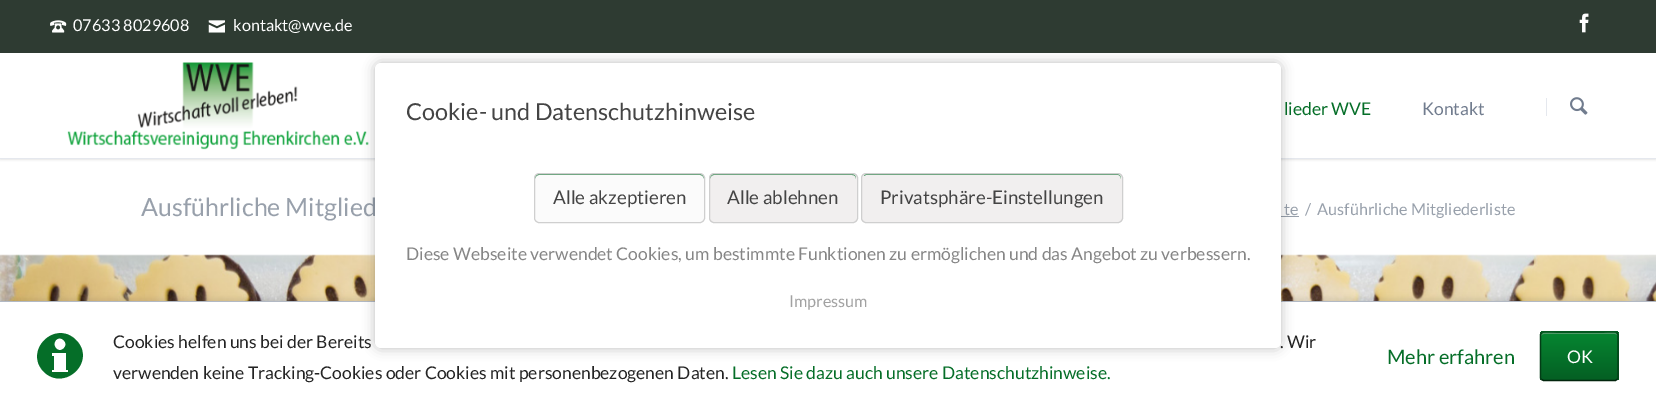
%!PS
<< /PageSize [1656 409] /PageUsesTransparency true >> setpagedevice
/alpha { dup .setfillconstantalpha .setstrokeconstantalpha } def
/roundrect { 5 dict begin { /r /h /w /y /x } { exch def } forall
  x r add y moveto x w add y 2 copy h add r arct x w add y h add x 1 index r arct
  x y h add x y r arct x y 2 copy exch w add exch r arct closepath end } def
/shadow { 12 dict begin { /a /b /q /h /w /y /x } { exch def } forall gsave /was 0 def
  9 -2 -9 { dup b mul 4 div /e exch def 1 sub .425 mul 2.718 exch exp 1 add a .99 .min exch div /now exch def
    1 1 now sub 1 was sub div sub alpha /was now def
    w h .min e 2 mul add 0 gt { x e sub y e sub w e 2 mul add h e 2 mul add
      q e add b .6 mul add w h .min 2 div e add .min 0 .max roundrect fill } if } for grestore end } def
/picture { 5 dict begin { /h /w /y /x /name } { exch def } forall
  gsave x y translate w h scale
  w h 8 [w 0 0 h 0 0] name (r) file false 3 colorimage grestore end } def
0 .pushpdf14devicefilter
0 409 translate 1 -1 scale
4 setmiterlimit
1 setgray
0 0 1656 409 rectfill
0.18 0.231 0.196 setrgbcolor
0 0 1656 53 rectfill
(img1.rgb) 50 20 17 13 picture
/Lato-Regular [16.25 0 0 -16.25 0 0] selectfont
1 setgray
73 31 moveto (07633 8029608) show
(img2.rgb) 208 20 17 13 picture
233 31 moveto (kontakt@wve.de) show
(img3.rgb) 1579 13 10 20 picture
0 setgray
0 54 1656 106 0 1 0.1 shadow
1 setgray
0 53 1656 105 rectfill
0.898 0.91 0.933 setrgbcolor
0 158 1656 1 rectfill
(img4.rgb) 67 62 302 88 picture
/Lato-Regular [17.5 0 0 -17.5 0 0] selectfont
0.02 0.431 0.157 setrgbcolor
1284 115 moveto (lieder WVE) show
0.443 0.486 0.557 setrgbcolor
1422 115 moveto (Kontakt) show
0.898 0.91 0.933 setrgbcolor
1546 98 1 18 rectfill
(img5.rgb) 1570 97 18 18 picture
/Lato-Regular [25 0 0 -25 0 0] selectfont
0.596 0.627 0.671 setrgbcolor
141 216 moveto (Ausführliche Mitglied) show
/Lato-Regular [16.25 0 0 -16.25 0 0] selectfont
1284 215 moveto (te) show
1281 216 18 1 rectfill
1305 215 moveto (/) show
1317 215 moveto (Ausführliche Mitgliederliste) show
(img6.rgb) 0 254 1656 47 picture
0 setgray
0 299 1656 109 0 3 0.1 shadow
1 setgray
0 302 1656 107 rectfill
0.698 0.725 0.769 setrgbcolor
0 301 1656 1 rectfill
0 setgray
375 63 906 285 6 6 0.25 shadow
/Lato-Regular [17.5 0 0 -17.5 0 0] selectfont
0.141 setgray
1280 348 moveto (. Wir) show
1 setgray
375 63 906 285 6 roundrect fill
/Lato-Regular [23.4 0 0 -23.4 0 0] selectfont
0.267 setgray
406 120 moveto (Cookie- und Datenschutzhinweise) show
0.984 setgray
534 173 171 50 5 roundrect fill
0.314 0.6 0.408 setrgbcolor
newpath 539 175 moveto 700 175 lineto 702 175 704 177 704 179 curveto 704 178 lineto 704 176 702 174 700 174 curveto 539 174 lineto 537 174 535 176 535 178 curveto 535 179 lineto 535 177 537 175 539 175 curveto closepath fill
0.812 setgray
534.5 173.5 170 49 4.5 roundrect stroke
/Lato-Regular [18.75 0 0 -18.75 0 0] selectfont
0.267 setgray
553 204 moveto (Alle akzeptieren) show
0.945 0.937 0.937 setrgbcolor
709 173 149 50 5 roundrect fill
0.314 0.6 0.408 setrgbcolor
newpath 714 175 moveto 852 175 lineto 855 175 856 177 856 179 curveto 856 178 lineto 856 176 854 174 852 174 curveto 714 174 lineto 712 174 710 176 710 178 curveto 710 179 lineto 710 177 712 175 714 175 curveto closepath fill
0.812 setgray
709.5 173.5 148 49 4.5 roundrect stroke
0.267 setgray
727 204 moveto (Alle ablehnen) show
0.945 0.937 0.937 setrgbcolor
861 173 262 50 5 roundrect fill
0.314 0.6 0.408 setrgbcolor
newpath 866 175 moveto 1118 175 lineto 1120 175 1121 177 1121 179 curveto 1121 178 lineto 1121 176 1119 174 1117 174 curveto 867 174 lineto 866 174 864 175 864 176 curveto closepath fill
0.812 setgray
861.5 173.5 261 49 4.5 roundrect stroke
0.267 setgray
880 204 moveto (Privatsphäre-Einstellungen) show
/Lato-Regular [17.5 0 0 -17.5 0 0] selectfont
0.525 setgray
406 260 moveto (Diese Webseite verwendet Cookies, um bestimmte Funktionen zu ermöglichen und das Angebot zu verbessern.) show
/Lato-Regular [16.25 0 0 -16.25 0 0] selectfont
0.635 setgray
789 307 moveto (Impressum) show
0.02 0.431 0.157 setrgbcolor
newpath 76 340 moveto 55 319 23 351 44 372 curveto 65 392 97 361 76 340 curveto closepath 56 340 moveto 61 335 69 343 64 348 curveto 59 354 51 346 56 340 curveto closepath 68 372 moveto 52 372 lineto 52 370 lineto 54 370 lineto 54 356 lineto 52 356 lineto 52 353 lineto 66 353 lineto 66 370 lineto 68 370 lineto closepath fill
/Lato-Regular [17.5 0 0 -17.5 0 0] selectfont
0.141 setgray
113 348 moveto (Cookies helfen uns bei der Bereits) show
113 379 moveto (verwenden keine Tracking-Cookies oder Cookies mit personenbezogenen Daten.) show
0.02 0.431 0.157 setrgbcolor
732 379 moveto (Lesen Sie dazu auch unsere Datenschutzhinweise.) show
/Lato-Regular [20 0 0 -20 0 0] selectfont
1387 364 moveto (Mehr erfahren) show
gsave
1540 331 79 50 4 roundrect clip newpath
gsave newpath 1540 331 moveto 1619 331 lineto 1619 333 lineto 1540 333 lineto closepath clip newpath
<< /ShadingType 2 /ColorSpace /DeviceRGB /Coords [1579 285 1579 333] /Extend [true true] /Function << /FunctionType 2 /Domain [0 1] /C0 [0.024 0.525 0.192] /C1 [0.016 0.373 0.137] /N 1 >> >> shfill grestore
gsave newpath 1540 333 moveto 1619 333 lineto 1619 380 lineto 1540 380 lineto closepath clip newpath
<< /ShadingType 2 /ColorSpace /DeviceRGB /Coords [1579 333 1579 380] /Extend [true true] /Function << /FunctionType 2 /Domain [0 1] /C0 [0.024 0.525 0.192] /C1 [0.016 0.373 0.137] /N 1 >> >> shfill grestore
grestore
0.314 0.6 0.408 setrgbcolor
newpath 1544 334 moveto 1615 334 lineto 1616 334 1618 335 1618 336 curveto 1618 330 1604 333 1604 333 curveto 1556 333 lineto 1555 333 1541 330 1541 336 curveto 1541 335 1542 334 1544 334 curveto closepath fill
0.016 0.337 0.122 setrgbcolor
1.2 setlinewidth
newpath 1541.5 333 moveto 1543.5 332 lineto 1615.5 332 lineto 1617 333 lineto stroke
0.012 0.239 0.086 setrgbcolor
newpath 1617 333 moveto 1618 334.5 lineto 1618 378 lineto 1617 379.5 lineto stroke
0.008 0.145 0.051 setrgbcolor
newpath 1617 379.5 moveto 1615.5 380.5 lineto 1543.5 380.5 lineto 1541.5 379.5 lineto stroke
0.012 0.239 0.086 setrgbcolor
newpath 1541.5 379.5 moveto 1540.5 378 lineto 1540.5 334.5 lineto 1541.5 333 lineto stroke
/Lato-Regular [17.5 0 0 -17.5 0 0] selectfont
1 setgray
1567 363 moveto (OK) show
.poppdf14devicefilter showpage
